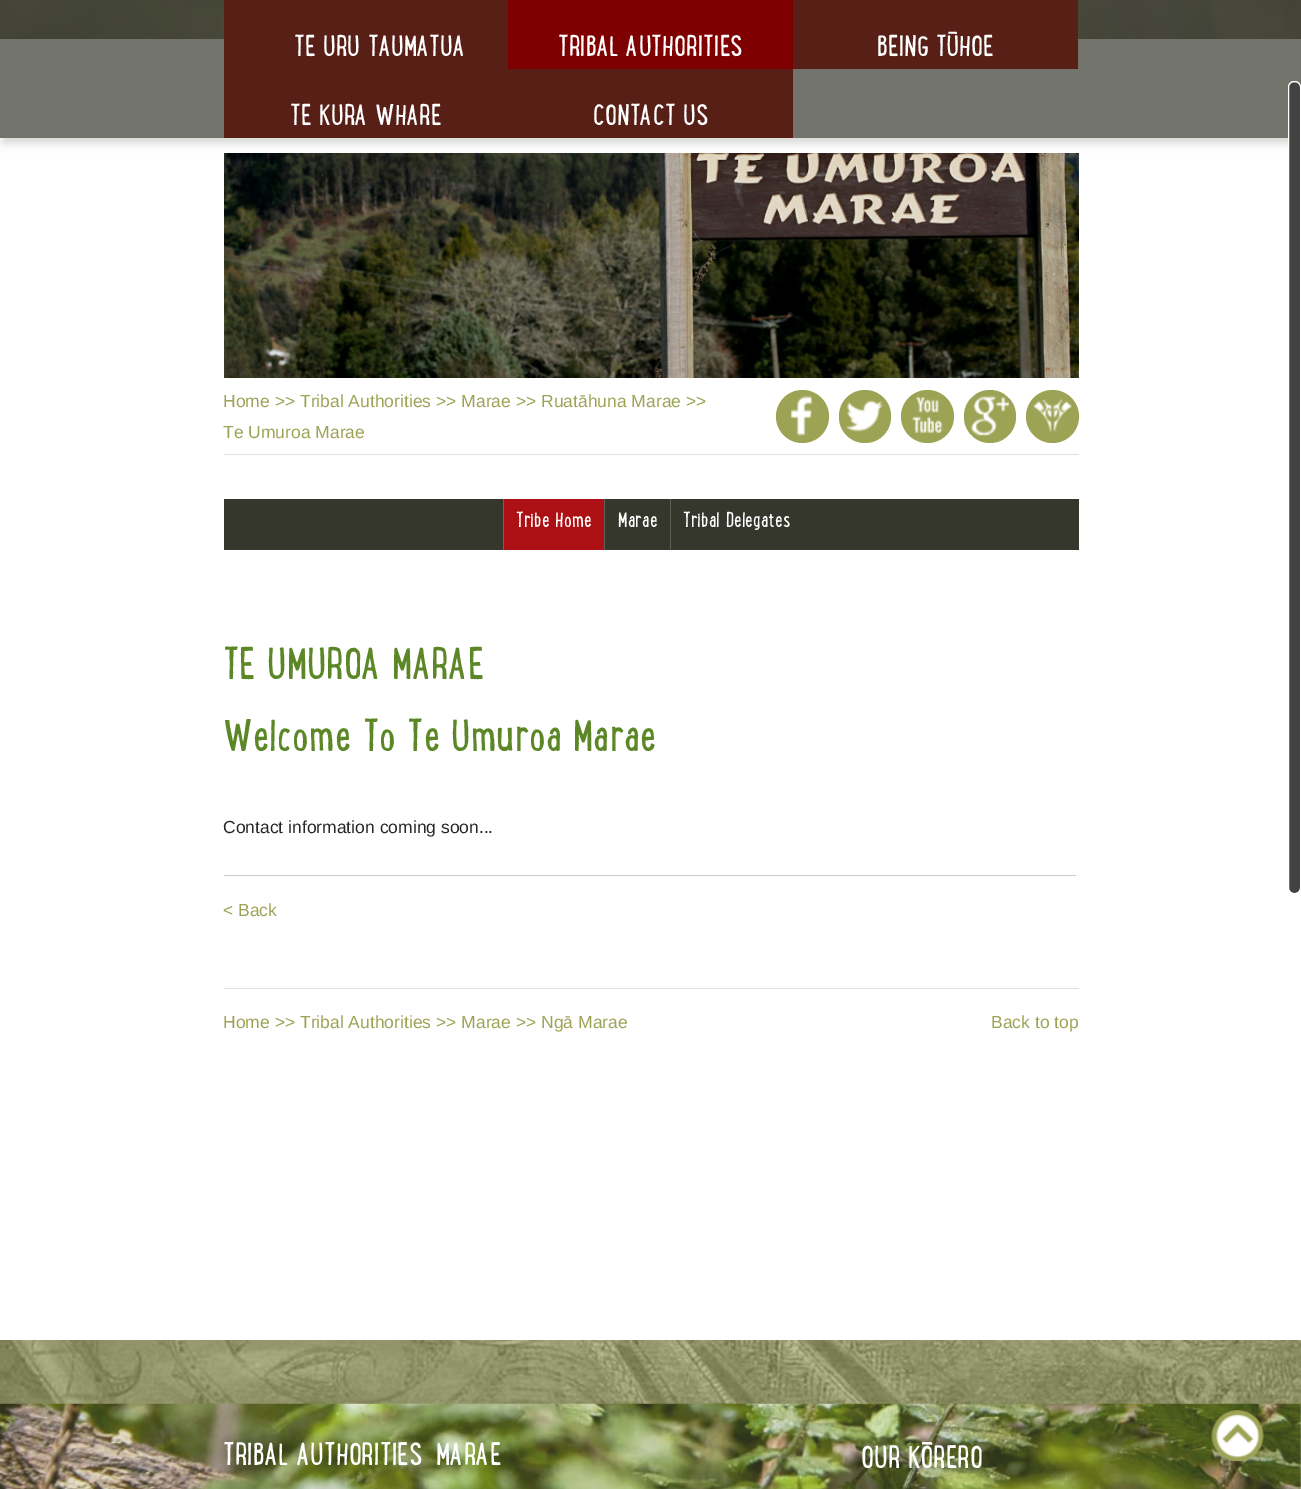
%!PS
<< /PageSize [1301 1489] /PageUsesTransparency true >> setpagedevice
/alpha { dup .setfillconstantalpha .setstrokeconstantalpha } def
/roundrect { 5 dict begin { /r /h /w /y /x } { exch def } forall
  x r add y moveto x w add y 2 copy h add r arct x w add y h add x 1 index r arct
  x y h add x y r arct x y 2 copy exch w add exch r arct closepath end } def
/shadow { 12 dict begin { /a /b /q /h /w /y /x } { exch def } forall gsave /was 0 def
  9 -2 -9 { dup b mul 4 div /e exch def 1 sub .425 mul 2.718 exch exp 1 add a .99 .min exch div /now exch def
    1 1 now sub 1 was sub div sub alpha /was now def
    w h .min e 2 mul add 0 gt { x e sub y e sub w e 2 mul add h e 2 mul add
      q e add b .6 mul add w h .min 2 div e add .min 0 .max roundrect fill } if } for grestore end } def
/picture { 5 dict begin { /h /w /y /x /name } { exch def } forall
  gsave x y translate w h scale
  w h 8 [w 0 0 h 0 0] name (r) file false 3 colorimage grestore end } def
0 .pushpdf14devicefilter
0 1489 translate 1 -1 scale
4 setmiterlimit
1 setgray
0 0 1301 1489 rectfill
(img1.rgb) 0 0 1301 39 picture
(img2.rgb) 224 153 855 225 picture
gsave
newpath 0 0 moveto 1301 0 lineto 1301 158 lineto 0 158 lineto closepath 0 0 moveto 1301 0 lineto 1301 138 lineto 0 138 lineto closepath eoclip newpath
0.212 0.216 0.173 setrgbcolor
3 8 1298 135 0 4.5 0.2 shadow
grestore
0.7 alpha
0.212 0.216 0.173 setrgbcolor
0 0 1301 138 rectfill
1 alpha
0.345 0.122 0.086 setrgbcolor
224 0 284 138 rectfill
/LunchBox-Regular [31.25 0 0 -31.25 0 0] selectfont
1 setgray
294 56 moveto (TE URU TAUMATUA) show
0.494 0 0.004 setrgbcolor
508 0 285 69 rectfill
1 setgray
558 56 moveto (TRIBAL AUTHORITIES) show
0.345 0.122 0.086 setrgbcolor
793 0 285 69 rectfill
1 setgray
877 56 moveto (BEING TŪHOE) show
290 125 moveto (TE KURA WHARE) show
0.345 0.122 0.086 setrgbcolor
508 69 285 69 rectfill
1 setgray
593 125 moveto (CONTACT US) show
0.878 setgray
224 454 855 1 rectfill
/LiberationSans-Regular [17.5 0 0 -17.5 0 0] selectfont
0.616 0.639 0.333 setrgbcolor
223 407 moveto (Home >> Tribal Authorities >> Marae >> Ruatāhuna Marae >>) show
223 438 moveto (Te Umuroa Marae) show
newpath 802.5 416.5 26.5 0 360 arc closepath fill
(img3.rgb) 791 395 22 41 picture
839 390 52 53 26 roundrect fill
(img4.rgb) 846 400 37 32 picture
newpath 927.5 416.5 26.5 0 360 arc closepath fill
(img5.rgb) 912 396 31 38 picture
964 390 52 53 26 roundrect fill
(img6.rgb) 971 395 38 41 picture
newpath 1052.5 416.5 26.5 0 360 arc closepath fill
(img7.rgb) 1033 399 39 33 picture
0.212 0.216 0.173 setrgbcolor
224 499 855 51 rectfill
0.675 0.063 0.078 setrgbcolor
504 499 100 51 rectfill
0.741 0.251 0.263 setrgbcolor
503 499 1 51 rectfill
/LunchBox-Regular [22.5 0 0 -22.5 0 0] selectfont
1 setgray
516 527 moveto (Tribe Home) show
0.369 0.373 0.337 setrgbcolor
604 499 1 51 rectfill
1 setgray
618 527 moveto (Marae) show
0.369 0.373 0.337 setrgbcolor
670 499 1 51 rectfill
1 setgray
683 527 moveto (Tribal Delegates) show
/LunchBox-Regular [47.5 0 0 -47.5 0 0] selectfont
0.361 0.529 0.153 setrgbcolor
223 679 moveto (TE UMUROA MARAE) show
223 751 moveto (Welcome To Te Umuroa Marae) show
/LiberationSans-Regular [17.5 0 0 -17.5 0 0] selectfont
0.149 setgray
223 833 moveto (Contact information coming soon...) show
0.8 setgray
224 875 852 1 rectfill
0.616 0.639 0.333 setrgbcolor
223 916 moveto (< Back) show
0.878 setgray
224 988 855 1 rectfill
0.616 0.639 0.333 setrgbcolor
223 1028 moveto (Home >> Tribal Authorities >> Marae >> Ngā Marae) show
991 1028 moveto (Back to top) show
0.259 setgray
1289 83 11 810 5 roundrect fill
1 setgray
1288.5 81.5 12 812 5.5 roundrect stroke
(img8.rgb) 0 1403 1301 86 picture
(img9.rgb) 0 1340 1301 64 picture
/LunchBox-Regular [33.75 0 0 -33.75 0 0] selectfont
223 1465 moveto (TRIBAL AUTHORITIES) show
436 1465 moveto (MARAE) show
861 1468 moveto (OUR KŌRERO) show
gsave
newpath 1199 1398 moveto 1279 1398 lineto 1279 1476 lineto 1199 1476 lineto closepath 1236.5 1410 moveto 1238.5 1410 lineto 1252.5 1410 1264 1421.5 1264 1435.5 curveto 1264 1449.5 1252.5 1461 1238.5 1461 curveto 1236.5 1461 lineto 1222.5 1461 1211 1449.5 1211 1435.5 curveto 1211 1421.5 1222.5 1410 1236.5 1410 curveto closepath eoclip newpath
0.212 0.216 0.173 setrgbcolor
1214 1413 50 48 24 4.5 0.2 shadow
grestore
(img10.rgb) 1211 1410 54 52 picture
.poppdf14devicefilter showpage
